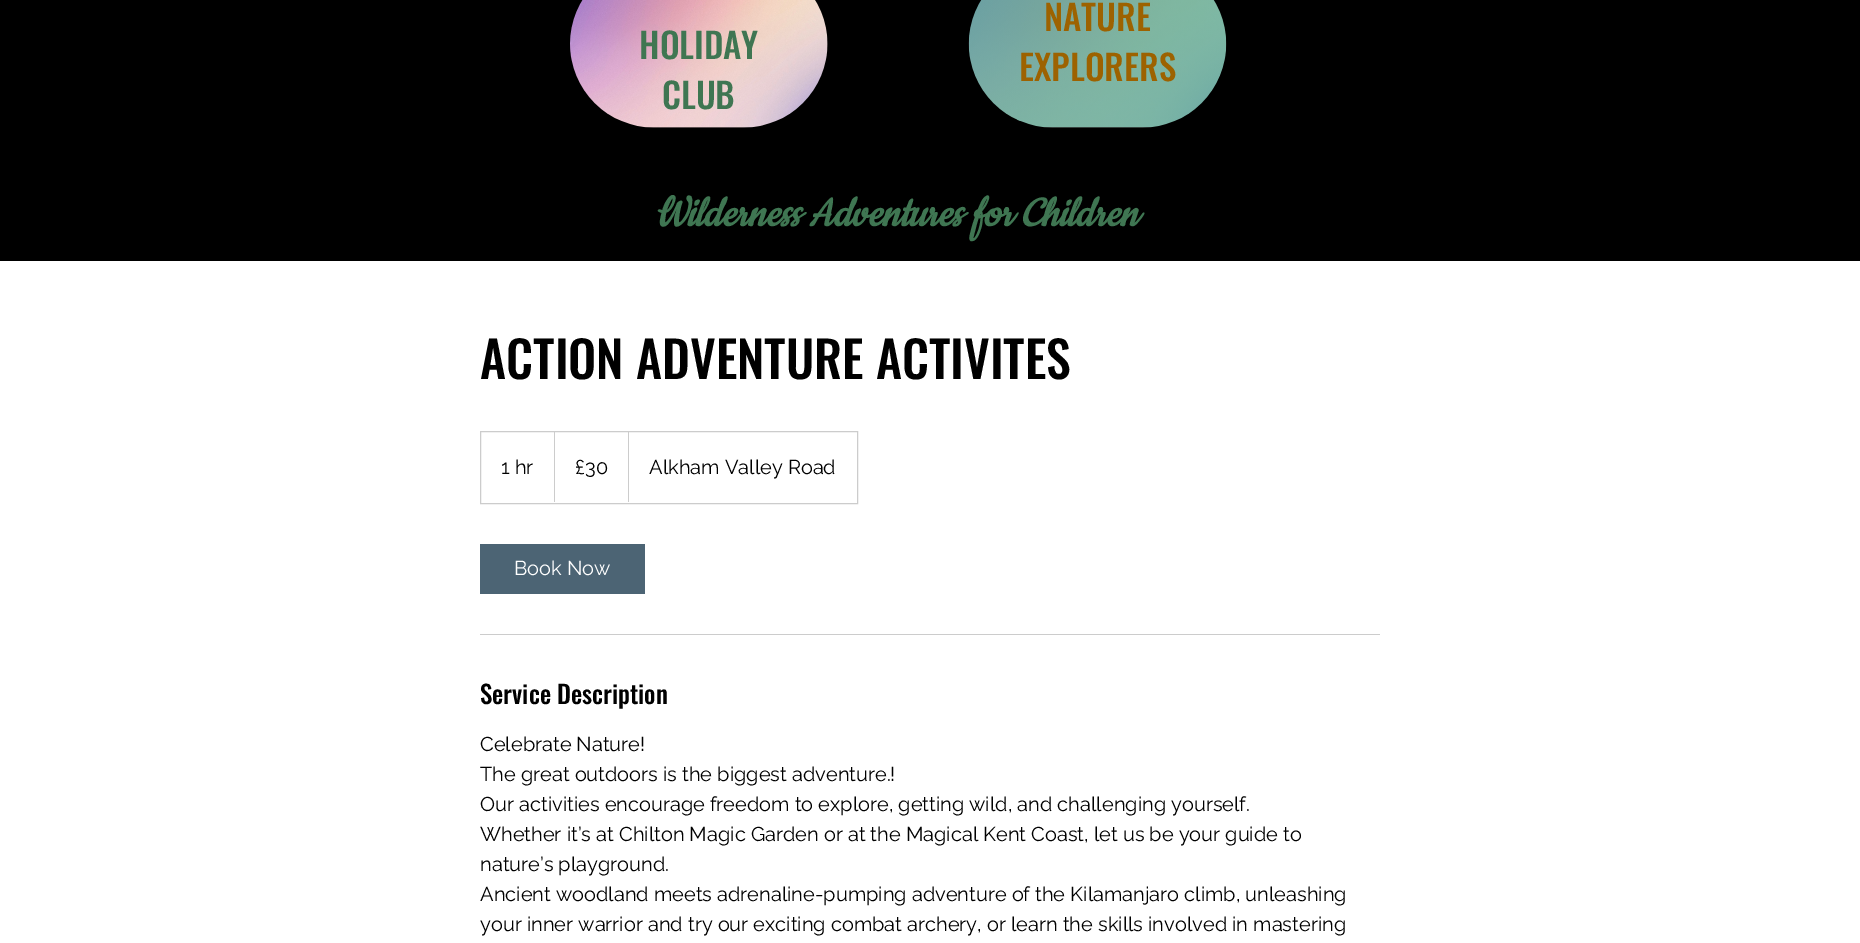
%!PS
<< /PageSize [1860 943] >> setpagedevice
/picture { 5 dict begin { /h /w /y /x /name } { exch def } forall
  gsave x y translate w h scale
  w h 8 [w 0 0 h 0 0] name (r) file false 3 colorimage grestore end } def
0 943 translate 1 -1 scale
4 setmiterlimit
1 setgray
0 0 1860 943 rectfill
0 setgray
0 0 1860 261 rectfill
(img1.rgb) 570 0 258 128 picture
/Oswald-Medium [35 0 0 -35 0 0] selectfont
0.247 0.463 0.322 setrgbcolor
639 59 moveto (HOLIDAY) show
662 109 moveto (CLUB) show
(img2.rgb) 968 0 259 128 picture
0.616 0.384 0 setrgbcolor
1044 31 moveto (NATURE) show
1019 81 moveto (EXPLORERS) show
/Cookie-BoldItalic [47.5 0 0 -47.5 0 0] selectfont
0.247 0.463 0.322 setrgbcolor
654 226 moveto (Wilderness Adventures for Children) show
/Oswald-Medium [50 0 0 -50 0 0] selectfont
0 setgray
480 379 moveto (ACTION ADVENTURE ACTIVITES) show
0.8 setgray
480.5 431.5 377 72 rectstroke
/Raleway-Regular [20 0 0 -20 0 0] selectfont
0 setgray
501 474 moveto (1 hr) show
0.8 setgray
newpath 554 502 moveto 554 431 lineto 555 432 lineto 555 502 lineto closepath fill
0 setgray
575 474 moveto (£30) show
0.8 setgray
newpath 628 502 moveto 628 431 lineto 629 432 lineto 629 502 lineto closepath fill
0 setgray
649 474 moveto (Alkham Valley Road) show
0.298 0.392 0.455 setrgbcolor
480 544 165 50 rectfill
1 setgray
514 575 moveto (Book Now) show
0.8 setgray
480 634 900 1 rectfill
/Oswald-Medium [25 0 0 -25 0 0] selectfont
0 setgray
480 704 moveto (Service Description) show
/Raleway-Regular [20 0 0 -20 0 0] selectfont
480 751 moveto (Celebrate Nature!) show
480 781 moveto (The great outdoors is the biggest adventure.!) show
480 811 moveto (Our activities encourage freedom to explore, getting wild, and challenging yourself.) show
480 841 moveto (Whether it’s at Chilton Magic Garden or at the Magical Kent Coast, let us be your guide to) show
480 871 moveto (nature’s playground.) show
480 901 moveto (Ancient woodland meets adrenaline-pumping adventure of the Kilamanjaro climb, unleashing) show
480 931 moveto (your inner warrior and try our exciting combat archery, or learn the skills involved in mastering) show
showpage
